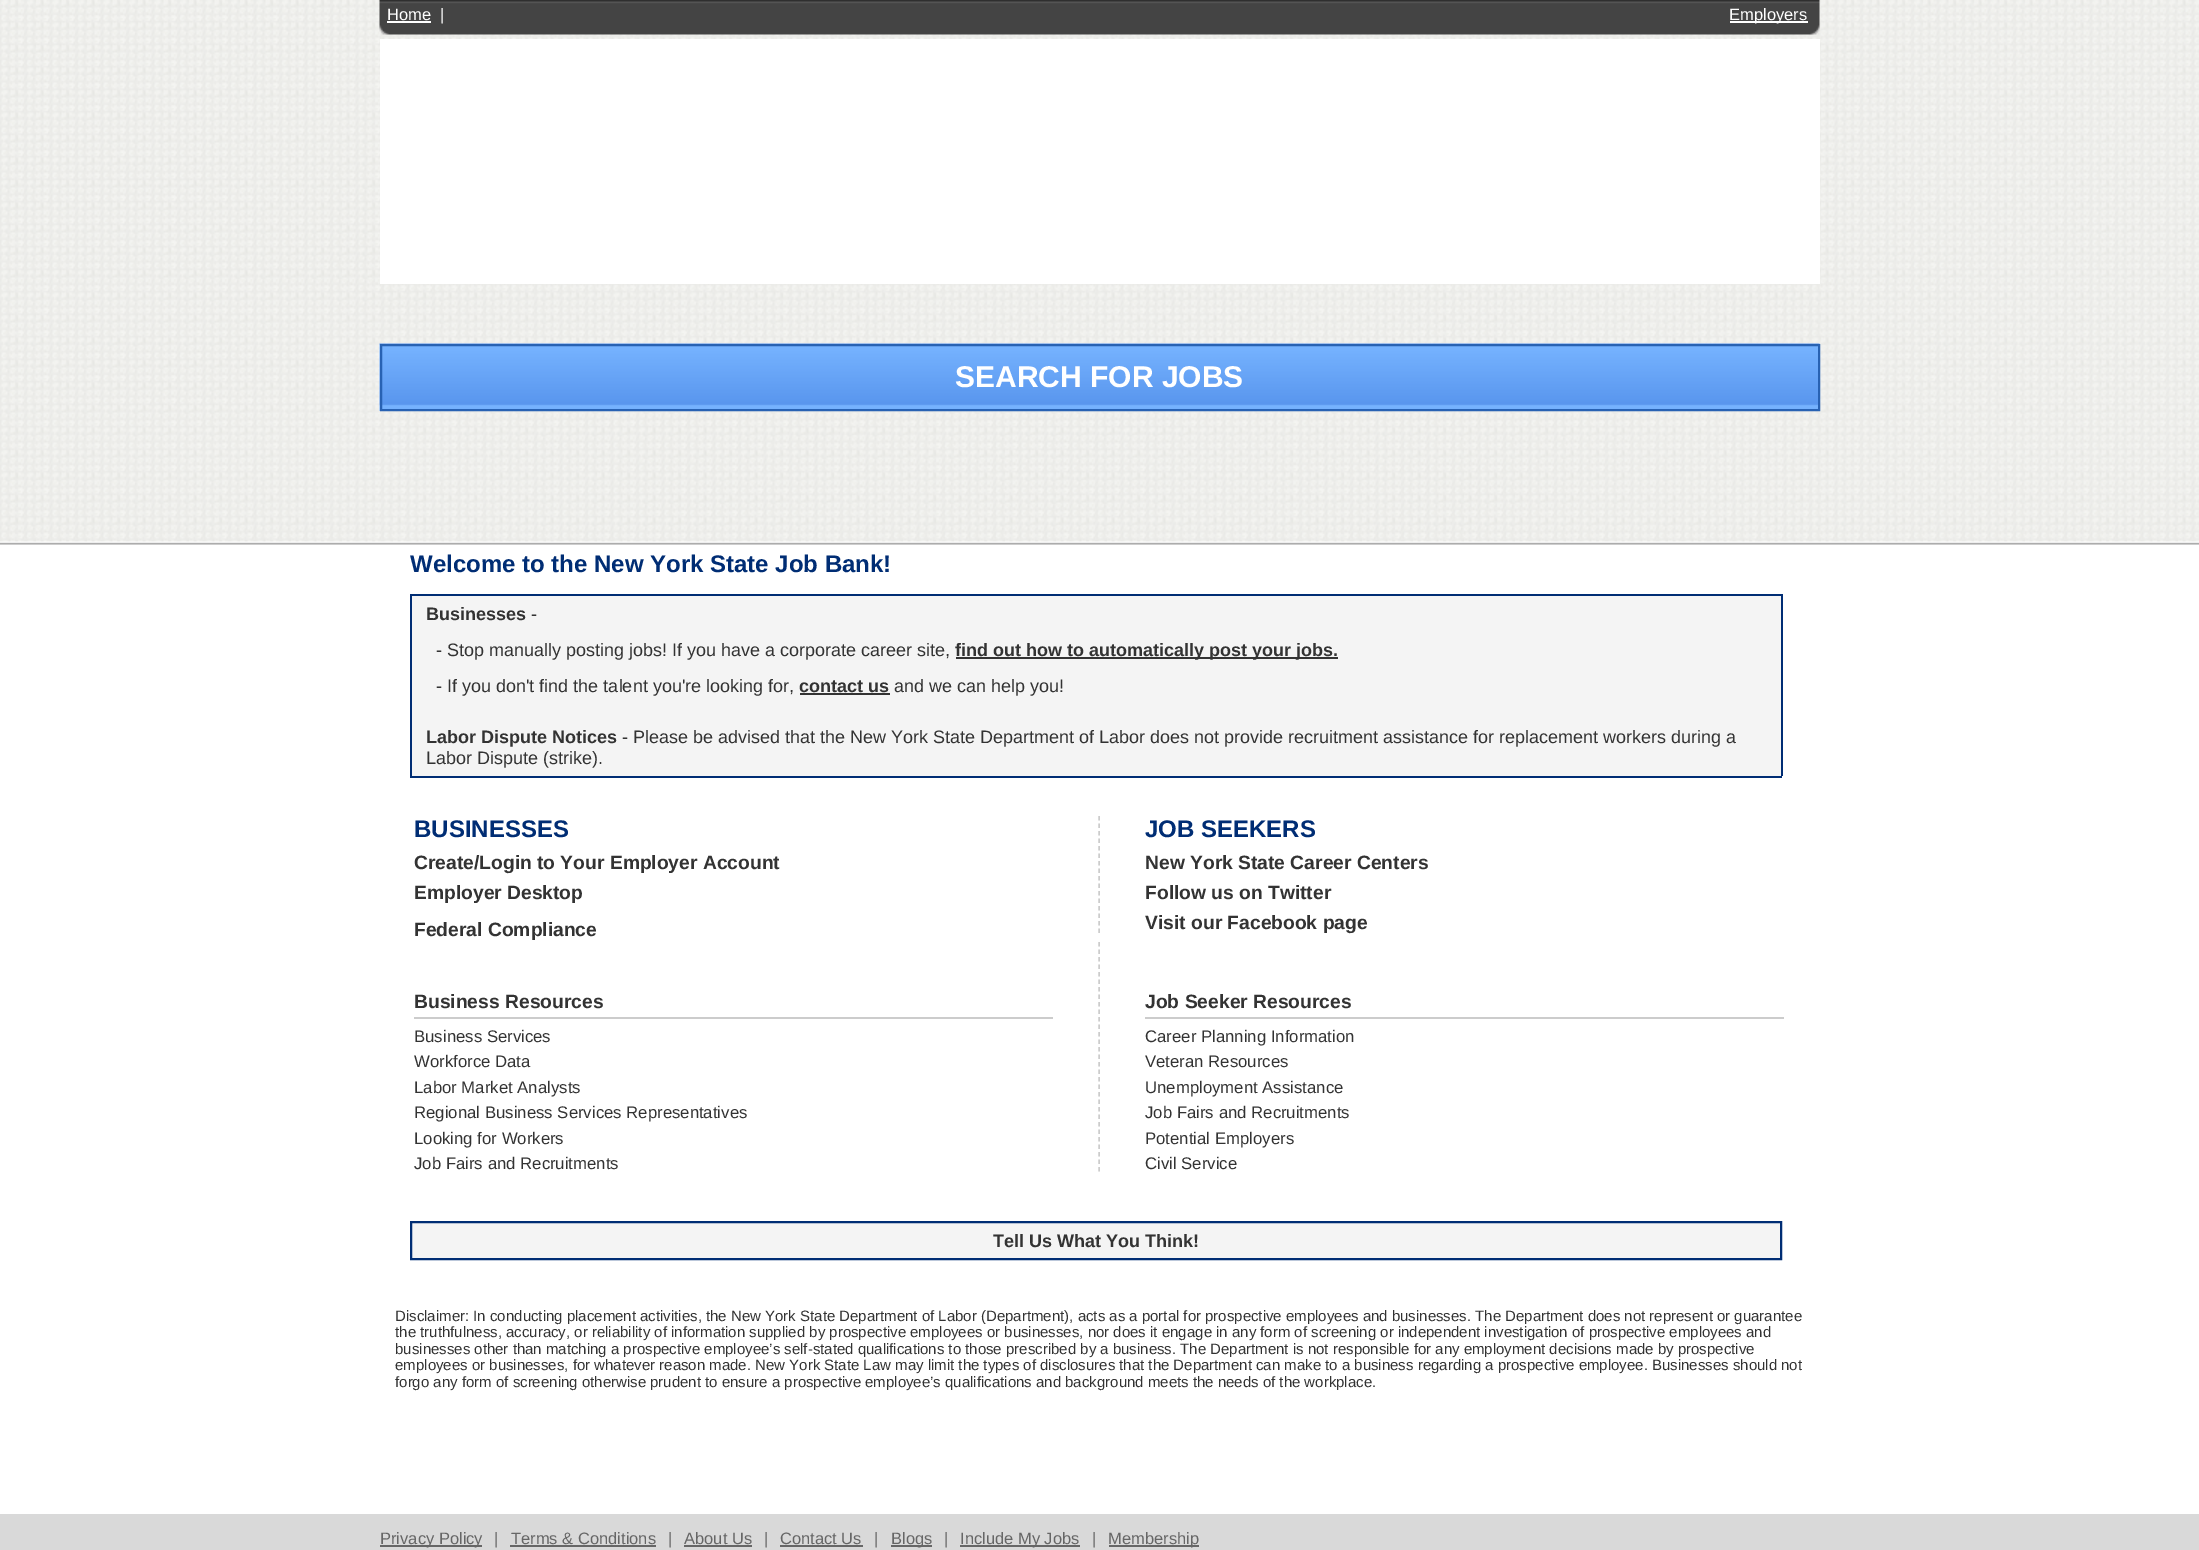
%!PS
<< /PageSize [2199 1550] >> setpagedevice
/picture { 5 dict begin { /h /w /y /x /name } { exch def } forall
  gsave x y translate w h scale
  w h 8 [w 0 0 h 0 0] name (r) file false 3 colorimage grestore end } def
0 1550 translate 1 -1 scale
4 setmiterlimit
1 setgray
0 0 2199 1550 rectfill
(img1.rgb) 0 0 2199 545 picture
(img2.rgb) 379 0 1441 35 picture
/LiberationSans-Regular [16.5 0 0 -16.5 0 0] selectfont
387 20 moveto (Home) show
387 21 44 2 rectfill
440 20 moveto (|) show
1730 21 78 2 rectfill
1729 20 moveto (Employers) show
380 39 1440 245 rectfill
(img3.rgb) 379 343 1441 68 picture
0.157 0.384 0.702 setrgbcolor
2 setlinewidth
381 345 1438 65 rectstroke
/LiberationSans-Bold [30 0 0 -30 0 0] selectfont
1 setgray
955 387 moveto (SEARCH FOR JOBS) show
/LiberationSans-Bold [24 0 0 -24 0 0] selectfont
0 0.176 0.455 setrgbcolor
410 572 moveto (Welcome to the New York State Job Bank!) show
0.957 setgray
412 596 1369 180 rectfill
0 0.176 0.455 setrgbcolor
410 594 1372 2 rectfill
1781 594 2 182 rectfill
410 594 2 182 rectfill
/LiberationSans-Bold [18 0 0 -18 0 0] selectfont
0.2 setgray
426 620 moveto (Businesses) show
/LiberationSans-Regular [18 0 0 -18 0 0] selectfont
531 620 moveto (-) show
436 656 moveto (- Stop manually posting jobs! If you have a corporate career site,) show
956 657 382 2 rectfill
/LiberationSans-Bold [18 0 0 -18 0 0] selectfont
955 656 moveto (find out how to automatically post your jobs.) show
/LiberationSans-Regular [18 0 0 -18 0 0] selectfont
436 692 moveto (- If you don't find the talent you're looking for,) show
/LiberationSans-Bold [18 0 0 -18 0 0] selectfont
799 692 moveto (contact us) show
800 693 90 2 rectfill
/LiberationSans-Regular [18 0 0 -18 0 0] selectfont
894 692 moveto (and we can help you!) show
/LiberationSans-Bold [18 0 0 -18 0 0] selectfont
426 743 moveto (Labor Dispute Notices) show
/LiberationSans-Regular [18 0 0 -18 0 0] selectfont
622 743 moveto (- Please be advised that the New York State Department of Labor does not provide recruitment assistance for replacement workers during a) show
426 764 moveto (Labor Dispute \(strike\).) show
0 0.176 0.455 setrgbcolor
410 776 1372 2 rectfill
/LiberationSans-Bold [24 0 0 -24 0 0] selectfont
414 837 moveto (BUSINESSES) show
/LiberationSans-Bold [19.25 0 0 -19.25 0 0] selectfont
0.2 setgray
414 869 moveto (Create/Login to Your Employer Account) show
414 899 moveto (Employer Desktop) show
414 936 moveto (Federal Compliance) show
0.8 setgray
1.5 setlinewidth
[4.5 3] 0 setdash
newpath 1099 816 moveto 1099 933 lineto stroke
/LiberationSans-Bold [24 0 0 -24 0 0] selectfont
0 0.176 0.455 setrgbcolor
1145 837 moveto (JOB SEEKERS) show
/LiberationSans-Bold [19.25 0 0 -19.25 0 0] selectfont
0.2 setgray
1145 869 moveto (New York State Career Centers) show
1145 899 moveto (Follow us on Twitter) show
1145 929 moveto (Visit our Facebook page) show
0.8 setgray
414 1017 639 2 rectfill
0.2 setgray
414 1008 moveto (Business Resources) show
/LiberationSans-Regular [16.75 0 0 -16.75 0 0] selectfont
414 1042 moveto (Business Services) show
414 1067 moveto (Workforce Data) show
414 1093 moveto (Labor Market Analysts) show
414 1118 moveto (Regional Business Services Representatives) show
414 1144 moveto (Looking for Workers) show
414 1169 moveto (Job Fairs and Recruitments) show
0.8 setgray
newpath 1099 942 moveto 1099 1171.5 lineto stroke
1145 1017 639 2 rectfill
/LiberationSans-Bold [19.25 0 0 -19.25 0 0] selectfont
0.2 setgray
1145 1008 moveto (Job Seeker Resources) show
/LiberationSans-Regular [16.75 0 0 -16.75 0 0] selectfont
1145 1042 moveto (Career Planning Information) show
1145 1067 moveto (Veteran Resources) show
1145 1093 moveto (Unemployment Assistance) show
1145 1118 moveto (Job Fairs and Recruitments) show
1145 1144 moveto (Potential Employers) show
1145 1169 moveto (Civil Service) show
0.957 setgray
newpath 411 1222 moveto 1781 1222 lineto 1781 1259 lineto 411 1259 lineto closepath gsave fill grestore
0 0.176 0.455 setrgbcolor
2 setlinewidth
[] 0 setdash
stroke
/LiberationSans-Bold [18 0 0 -18 0 0] selectfont
0.2 setgray
993 1247 moveto (Tell Us What You Think!) show
/LiberationSans-Regular [15 0 0 -15 0 0] selectfont
395 1321 moveto (Disclaimer: In conducting placement activities, the New York State Department of Labor \(Department\), acts as a portal for prospective employees and businesses. The Department does not represent or guarantee) show
395 1337 moveto (the truthfulness, accuracy, or reliability of information supplied by prospective employees or businesses, nor does it engage in any form of screening or independent investigation of prospective employees and) show
395 1354 moveto (businesses other than matching a prospective employee’s self-stated qualifications to those prescribed by a business. The Department is not responsible for any employment decisions made by prospective) show
395 1370 moveto (employees or businesses, for whatever reason made. New York State Law may limit the types of disclosures that the Department can make to a business regarding a prospective employee. Businesses should not) show
395 1387 moveto (forgo any form of screening otherwise prudent to ensure a prospective employee’s qualifications and background meets the needs of the workplace.) show
0.851 setgray
0 1514 2199 36 rectfill
0.4 setgray
380 1545 102 2 rectfill
/LiberationSans-Regular [16.5 0 0 -16.5 0 0] selectfont
380 1544 moveto (Privacy Policy) show
494 1544 moveto (|) show
511 1544 moveto (Terms & Conditions) show
510 1545 146 2 rectfill
668 1544 moveto (|) show
684 1544 moveto (About Us) show
684 1545 68 2 rectfill
764 1544 moveto (|) show
780 1544 moveto (Contact Us) show
780 1545 83 2 rectfill
874 1544 moveto (|) show
891 1545 41 2 rectfill
891 1544 moveto (Blogs) show
944 1544 moveto (|) show
960 1545 120 2 rectfill
960 1544 moveto (Include My Jobs) show
1092 1544 moveto (|) show
1109 1545 90 2 rectfill
1108 1544 moveto (Membership) show
showpage
